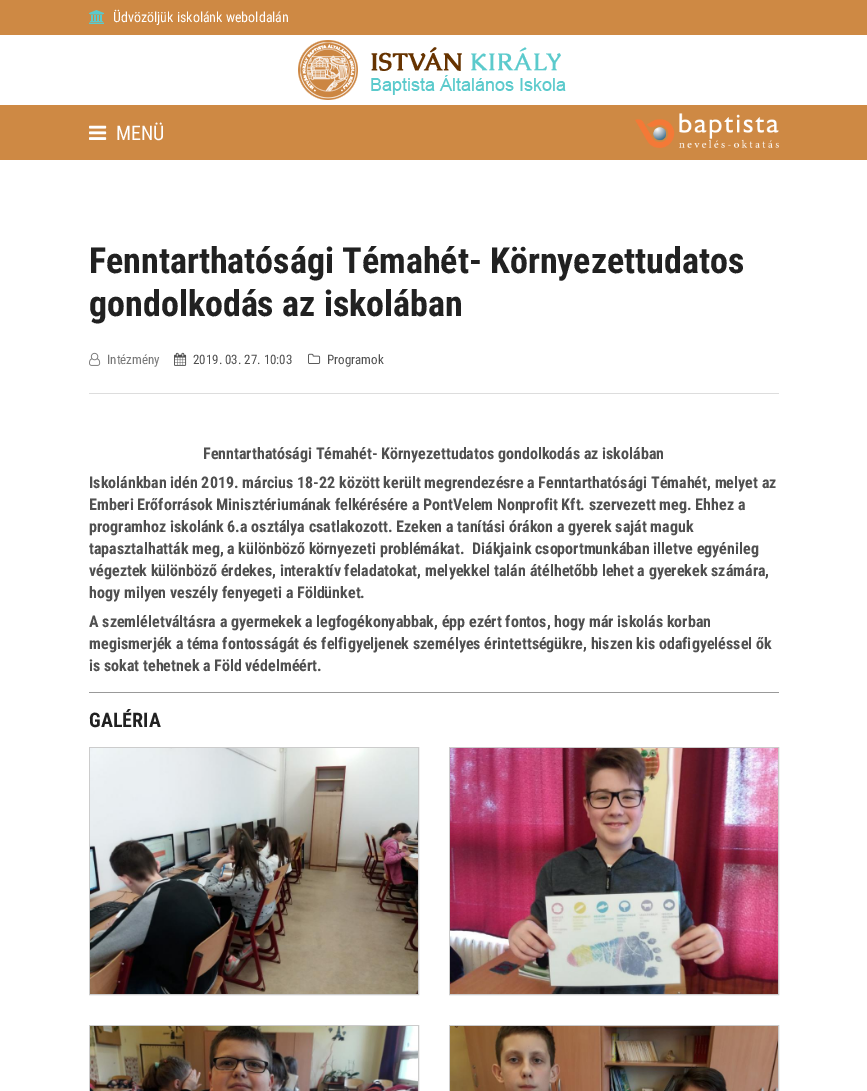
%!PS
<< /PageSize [867 1091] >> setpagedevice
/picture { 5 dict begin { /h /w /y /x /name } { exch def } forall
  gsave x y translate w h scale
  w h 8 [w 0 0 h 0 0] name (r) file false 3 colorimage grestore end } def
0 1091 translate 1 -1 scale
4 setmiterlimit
1 setgray
0 0 867 1091 rectfill
0.808 0.537 0.267 setrgbcolor
0 0 867 35 rectfill
(img1.rgb) 89 10 15 14 picture
/RobotoCondensed-Regular [14 0 0 -14 0 0] selectfont
1 setgray
113 22 moveto (Üdvözöljük iskolánk weboldalán) show
(img2.rgb) 298 40 268 60 picture
0.808 0.537 0.267 setrgbcolor
0 105 867 55 rectfill
(img3.rgb) 89 125 18 15 picture
/RobotoCondensed-Regular [20 0 0 -20 0 0] selectfont
1 setgray
116 140 moveto (MENÜ) show
(img4.rgb) 635 113 144 35 picture
/RobotoCondensed-Bold [36 0 0 -36 0 0] selectfont
0.129 setgray
89 273 moveto (Fenntarthatósági Témahét- Környezettudatos) show
89 316 moveto (gondolkodás az iskolában) show
0.867 setgray
89 393 690 1 rectfill
(img5.rgb) 89 352 12 14 picture
/RobotoCondensed-Regular [13 0 0 -13 0 0] selectfont
0.467 setgray
107 364 moveto (Intézmény) show
(img6.rgb) 174 352 13 14 picture
0.314 setgray
193 364 moveto (2019. 03. 27. 10:03) show
(img7.rgb) 308 353 13 11 picture
327 364 moveto (Programok) show
/RobotoCondensed-Bold [16 0 0 -16 0 0] selectfont
203 459 moveto (Fenntarthatósági Témahét- Környezettudatos gondolkodás az iskolában) show
89 488 moveto (Iskolánkban idén 2019. március 18-22 között került megrendezésre a Fenntarthatósági Témahét, melyet az) show
89 510 moveto (Emberi Erőforrások Minisztériumának felkérésére a PontVelem Nonprofit Kft. szervezett meg. Ehhez a) show
89 532 moveto (programhoz iskolánk 6.a osztálya csatlakozott. Ezeken a tanítási órákon a gyerek saját maguk) show
89 554 moveto (tapasztalhatták meg, a különböző környezeti problémákat.  Diákjaink csoportmunkában illetve egyénileg) show
89 576 moveto (végeztek különböző érdekes, interaktív feladatokat, melyekkel talán átélhetőbb lehet a gyerekek számára,) show
89 598 moveto (hogy milyen veszély fenyegeti a Földünket.) show
89 627 moveto (A szemléletváltásra a gyermekek a legfogékonyabbak, épp ezért fontos, hogy már iskolás korban) show
89 649 moveto (megismerjék a téma fontosságát és felfigyeljenek személyes érintettségükre, hiszen kis odafigyeléssel ők) show
89 671 moveto (is sokat tehetnek a Föld védelméért.) show
0.6 setgray
89 692 690 1 rectfill
/RobotoCondensed-Bold [20 0 0 -20 0 0] selectfont
0.129 setgray
89 727 moveto (GALÉRIA) show
0.8 setgray
89.5 747.5 329 247 rectstroke
(img8.rgb) 90 748 328 246 picture
449.5 747.5 329 247 rectstroke
(img9.rgb) 450 748 328 246 picture
89.5 1025.5 329 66 rectstroke
(img10.rgb) 90 1026 328 65 picture
449.5 1025.5 329 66 rectstroke
(img11.rgb) 450 1026 328 65 picture
showpage
